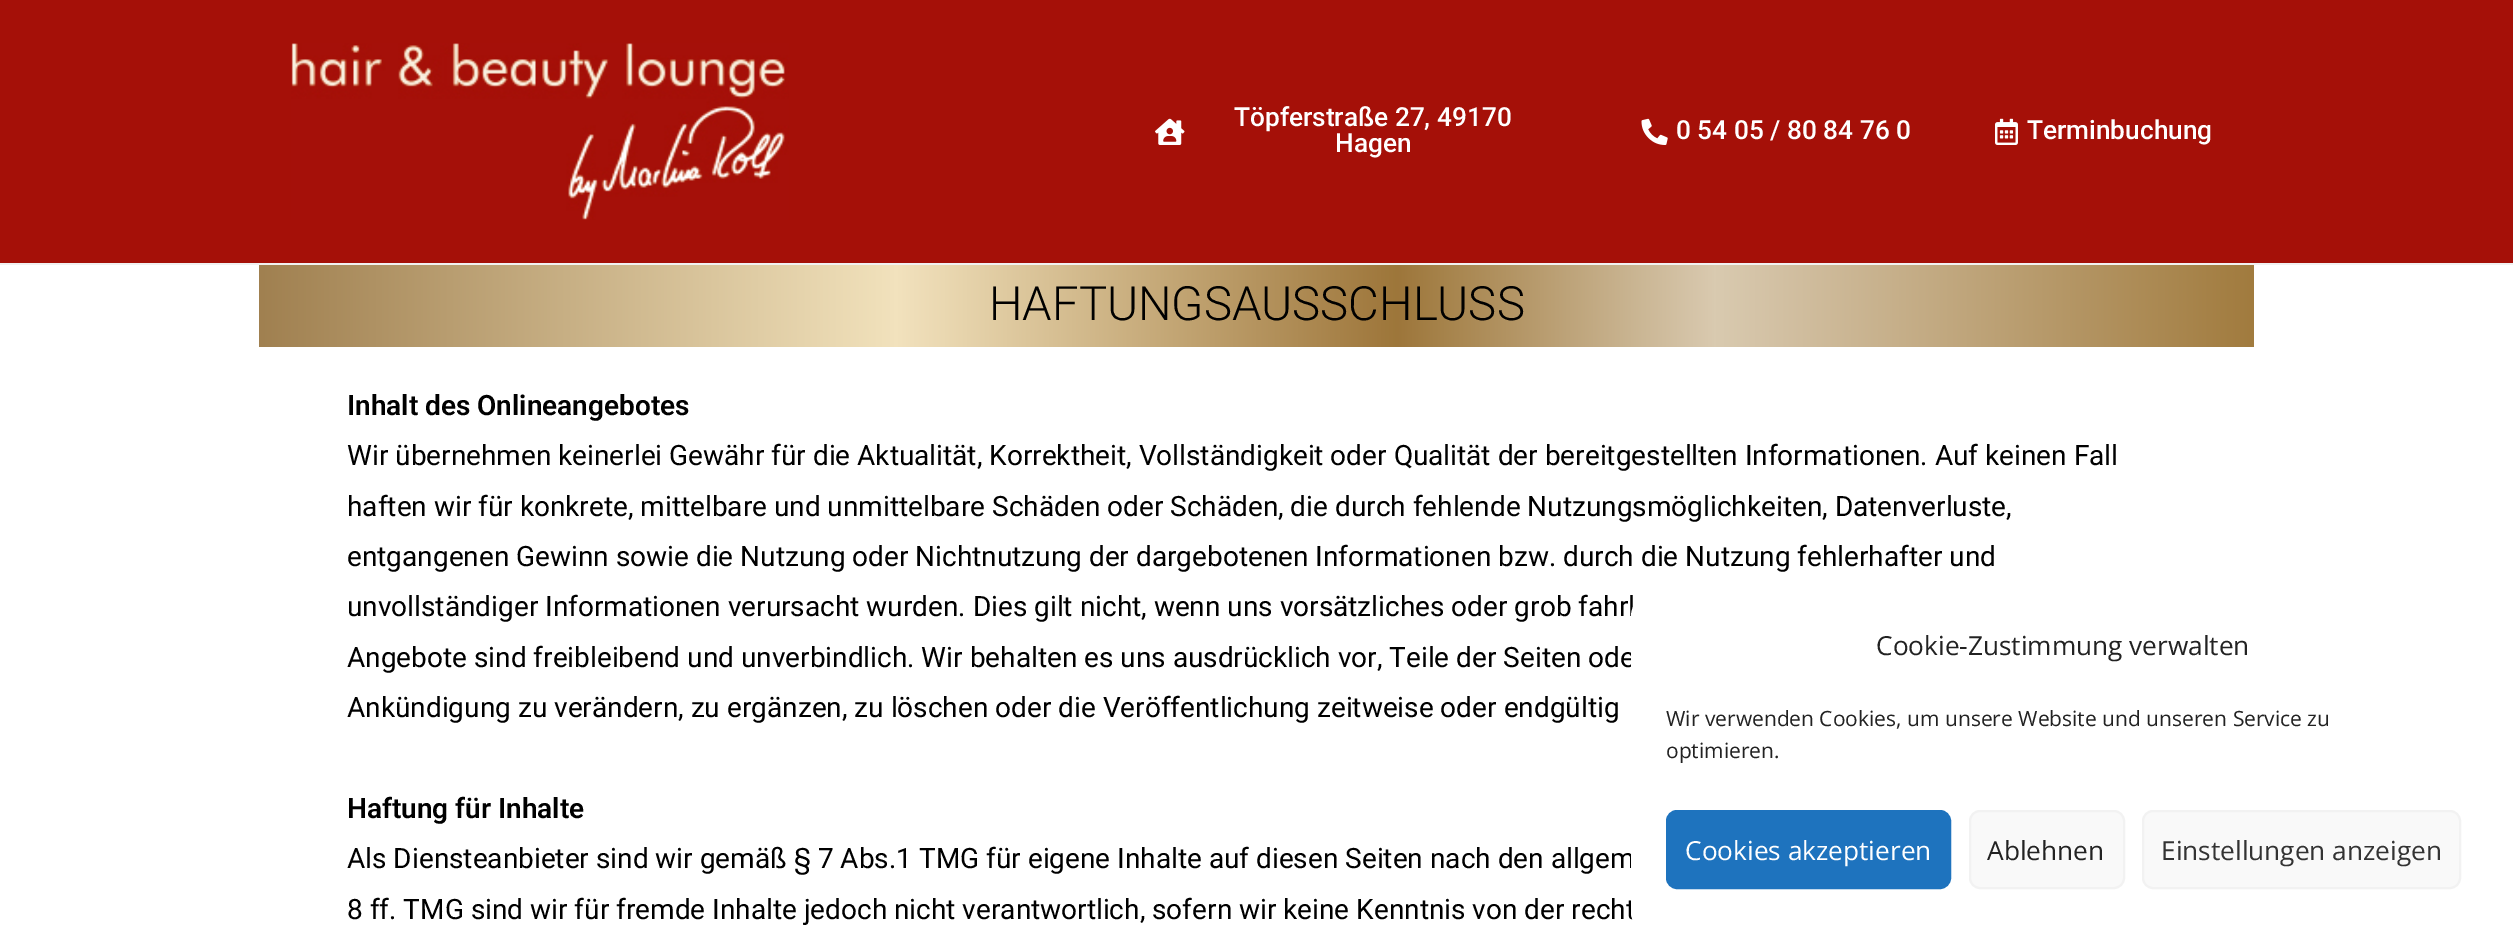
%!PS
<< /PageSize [2513 949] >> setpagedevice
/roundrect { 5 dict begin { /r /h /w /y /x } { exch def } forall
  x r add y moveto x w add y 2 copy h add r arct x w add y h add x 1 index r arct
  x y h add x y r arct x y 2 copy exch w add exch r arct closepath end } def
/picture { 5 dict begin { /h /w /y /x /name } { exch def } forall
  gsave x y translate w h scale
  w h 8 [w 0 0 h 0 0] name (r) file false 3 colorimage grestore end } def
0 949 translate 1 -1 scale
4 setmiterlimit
1 setgray
0 0 2513 949 rectfill
0.945 setgray
0 263 2513 2 rectfill
0.647 0.063 0.031 setrgbcolor
0 0 2513 263 rectfill
(img1.rgb) 291 43 498 177 picture
(img2.rgb) 1155 118 30 27 picture
/Roboto-Medium [26.25 0 0 -26.25 0 0] selectfont
1 setgray
1234 126 moveto (Töpferstraße 27, 49170) show
1335 152 moveto (Hagen) show
(img3.rgb) 1641 118 27 27 picture
1676 139 moveto (0 54 05 / 80 84 76 0) show
(img4.rgb) 1995 118 23 27 picture
2027 139 moveto (Terminbuchung) show
gsave newpath 259 265 moveto 2254 265 lineto 2254 347 lineto 259 347 lineto closepath clip newpath
<< /ShadingType 2 /ColorSpace /DeviceRGB /Coords [259 305 2254 305] /Extend [true true] /Function << /FunctionType 3 /Domain [0 1] /Functions [<< /FunctionType 2 /Domain [0 1] /C0 [0.627 0.502 0.314] /C1 [0.949 0.886 0.741] /N 1 >> << /FunctionType 2 /Domain [0 1] /C0 [0.949 0.886 0.741] /C1 [0.616 0.463 0.227] /N 1 >> << /FunctionType 2 /Domain [0 1] /C0 [0.616 0.463 0.227] /C1 [0.851 0.792 0.69] /N 1 >> << /FunctionType 2 /Domain [0 1] /C0 [0.851 0.792 0.69] /C1 [0.631 0.482 0.243] /N 1 >>] /Bounds [0.32 0.57 0.73] /Encode [0 1 0 1 0 1 0 1] >> >> shfill grestore
/Roboto-Light [47.25 0 0 -47.25 0 0] selectfont
0 setgray
989 320 moveto (HAFTUNGSAUSSCHLUSS) show
/Roboto-SemiBold [28 0 0 -28 0 0] selectfont
347 415 moveto (Inhalt des Onlineangebotes) show
/Roboto-Regular [28 0 0 -28 0 0] selectfont
347 465 moveto (Wir übernehmen keinerlei Gewähr für die Aktualität, Korrektheit, Vollständigkeit oder Qualität der bereitgestellten Informationen. Auf keinen Fall) show
347 516 moveto (haften wir für konkrete, mittelbare und unmittelbare Schäden oder Schäden, die durch fehlende Nutzungsmöglichkeiten, Datenverluste,) show
347 566 moveto (entgangenen Gewinn sowie die Nutzung oder Nichtnutzung der dargebotenen Informationen bzw. durch die Nutzung fehlerhafter und) show
347 616 moveto (unvollständiger Informationen verursacht wurden. Dies gilt nicht, wenn uns vorsätzliches oder grob fahrl) show
347 667 moveto (Angebote sind freibleibend und unverbindlich. Wir behalten es uns ausdrücklich vor, Teile der Seiten ode) show
347 717 moveto (Ankündigung zu verändern, zu ergänzen, zu löschen oder die Veröffentlichung zeitweise oder endgültig) show
/Roboto-SemiBold [28 0 0 -28 0 0] selectfont
347 818 moveto (Haftung für Inhalte) show
/Roboto-Regular [28 0 0 -28 0 0] selectfont
347 868 moveto (Als Diensteanbieter sind wir gemäß § 7 Abs.1 TMG für eigene Inhalte auf diesen Seiten nach den allgem) show
347 919 moveto (8 ff. TMG sind wir für fremde Inhalte jedoch nicht verantwortlich, sofern wir keine Kenntnis von der recht) show
1 setgray
1631 595 865 338 21 roundrect fill
/OpenSans-Regular [26.25 0 0 -26.25 0 0] selectfont
0.133 setgray
1876 655 moveto (Cookie-Zustimmung verwalten) show
/OpenSans-Regular [21 0 0 -21 0 0] selectfont
1666 726 moveto (Wir verwenden Cookies, um unsere Website und unseren Service zu) show
1666 758 moveto (optimieren.) show
0.118 0.451 0.745 setrgbcolor
1667 811 283 77 10 roundrect gsave fill grestore
2 setlinewidth
stroke
/OpenSans-Regular [26.25 0 0 -26.25 0 0] selectfont
1 setgray
1685 860 moveto (Cookies akzeptieren) show
0.976 setgray
1970 811 154 77 10 roundrect gsave fill grestore
0.949 setgray
stroke
0.133 setgray
1987 860 moveto (Ablehnen) show
0.976 setgray
2143 811 317 77 10 roundrect gsave fill grestore
0.949 setgray
stroke
0.2 setgray
2161 860 moveto (Einstellungen anzeigen) show
showpage
